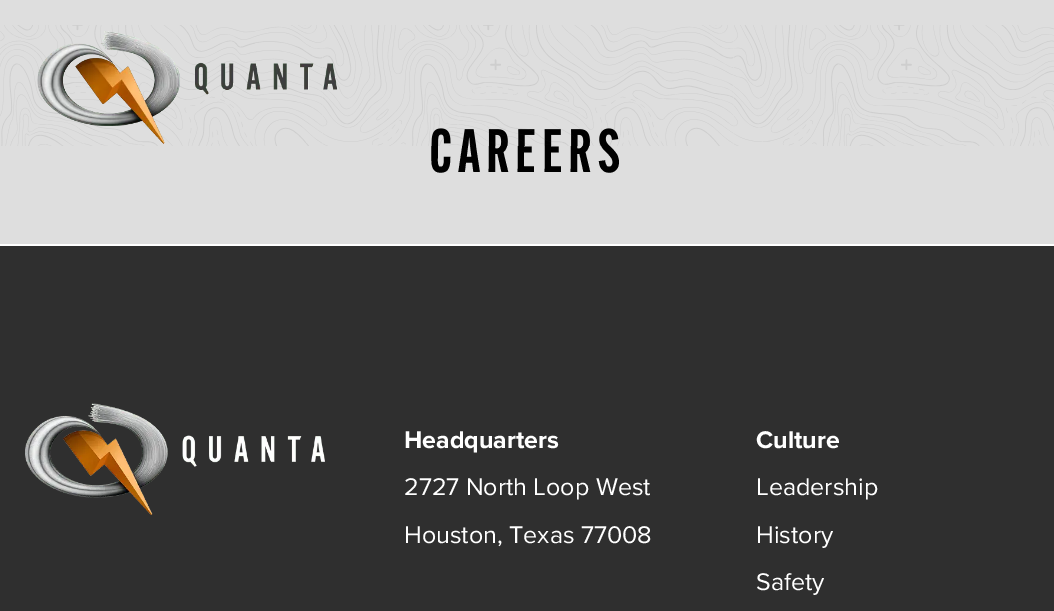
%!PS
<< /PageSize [1054 611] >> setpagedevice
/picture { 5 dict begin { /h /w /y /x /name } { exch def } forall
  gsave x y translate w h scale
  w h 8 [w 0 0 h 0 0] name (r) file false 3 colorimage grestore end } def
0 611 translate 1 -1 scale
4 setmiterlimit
1 setgray
0 0 1054 611 rectfill
0.871 setgray
0 0 1054 244 rectfill
/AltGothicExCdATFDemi-SemiBold [60 0 0 -60 0 0] selectfont
0 setgray
429 172 moveto 6 0 (CAREERS) ashow
(img3.rgb) 0 25 1054 121 picture
(img1.rgb) 37 31 301 113 picture
(img2.rgb) 37 31 301 113 picture
0.184 setgray
0 246 1054 365 rectfill
(img4.rgb) 25 403 300 112 picture
/ProximaNova-Bold [25 0 0 -25 0 0] selectfont
1 setgray
404 448 moveto (Headquarters) show
/ProximaNova-Regular [25 0 0 -25 0 0] selectfont
404 495 moveto (2727 North Loop West) show
404 543 moveto (Houston, Texas 77008) show
/ProximaNova-Bold [25 0 0 -25 0 0] selectfont
756 448 moveto (Culture) show
/ProximaNova-Regular [25 0 0 -25 0 0] selectfont
756 495 moveto (Leadership) show
756 543 moveto (History) show
756 590 moveto (Safety) show
showpage
